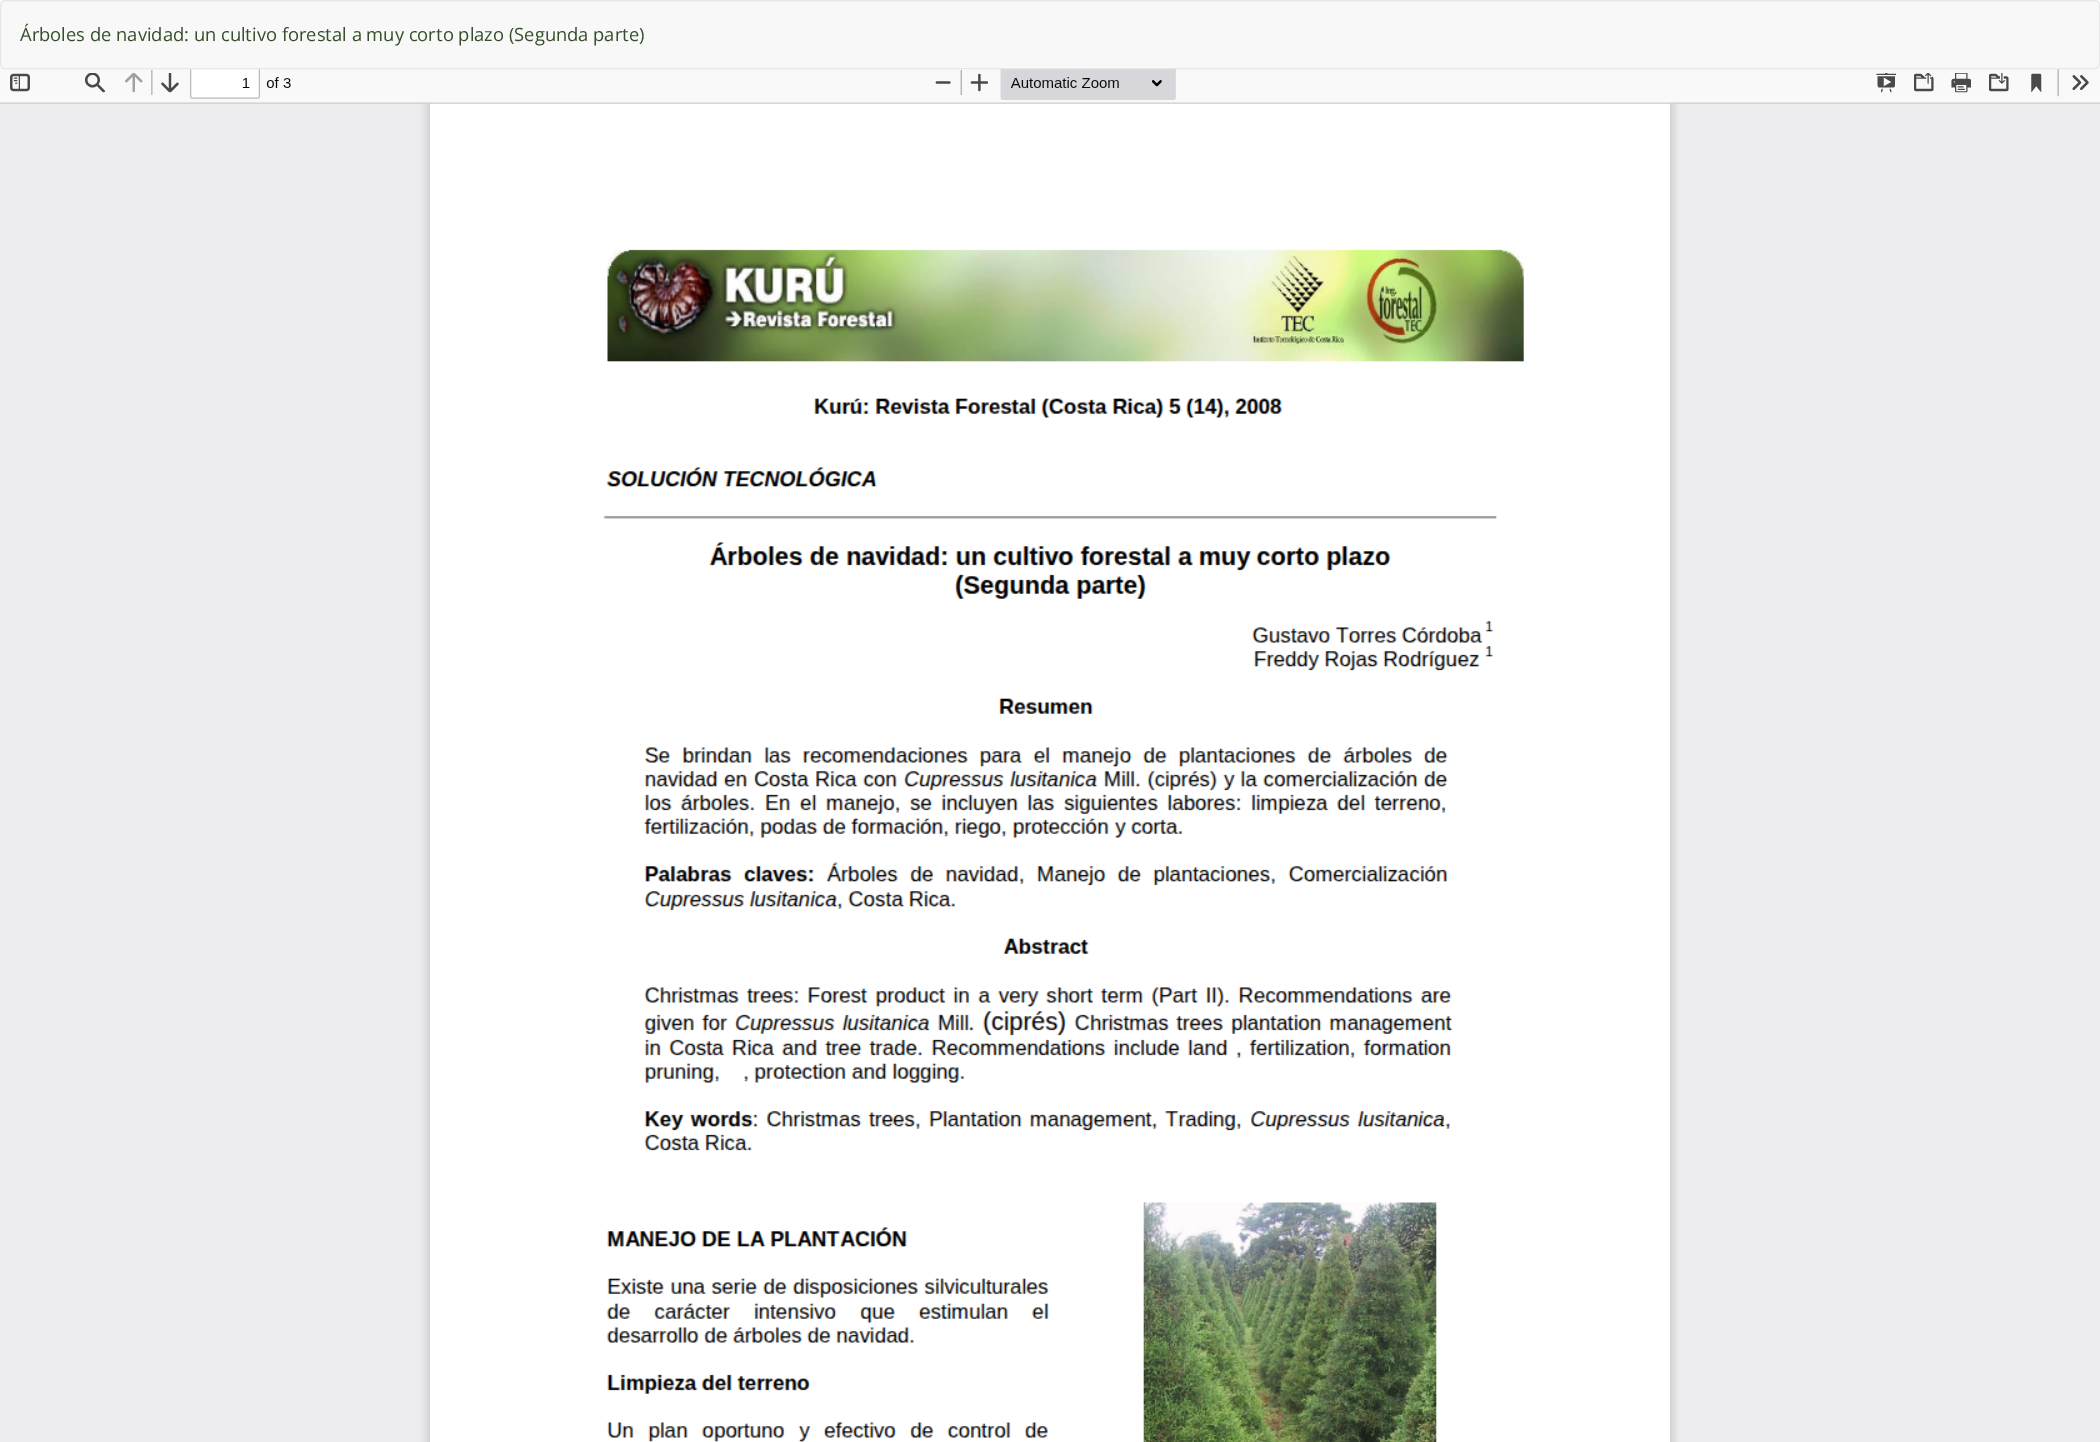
%!PS
<< /PageSize [2100 1442] >> setpagedevice
/roundrect { 5 dict begin { /r /h /w /y /x } { exch def } forall
  x r add y moveto x w add y 2 copy h add r arct x w add y h add x 1 index r arct
  x y h add x y r arct x y 2 copy exch w add exch r arct closepath end } def
/picture { 5 dict begin { /h /w /y /x /name } { exch def } forall
  gsave x y translate w h scale
  w h 8 [w 0 0 h 0 0] name (r) file false 3 colorimage grestore end } def
0 1442 translate 1 -1 scale
4 setmiterlimit
1 setgray
0 0 2100 1442 rectfill
(img1.rgb) 0 64 2100 1378 picture
0.973 setgray
0.5 0.5 2099 68 4.5 roundrect gsave fill grestore
0.906 setgray
stroke
/OpenSans-Regular [18.35 0 0 -18.35 0 0] selectfont
0.212 0.31 0.165 setrgbcolor
20 41 moveto (Árboles de navidad: un cultivo forestal a muy corto plazo \(Segunda parte\)) show
showpage
